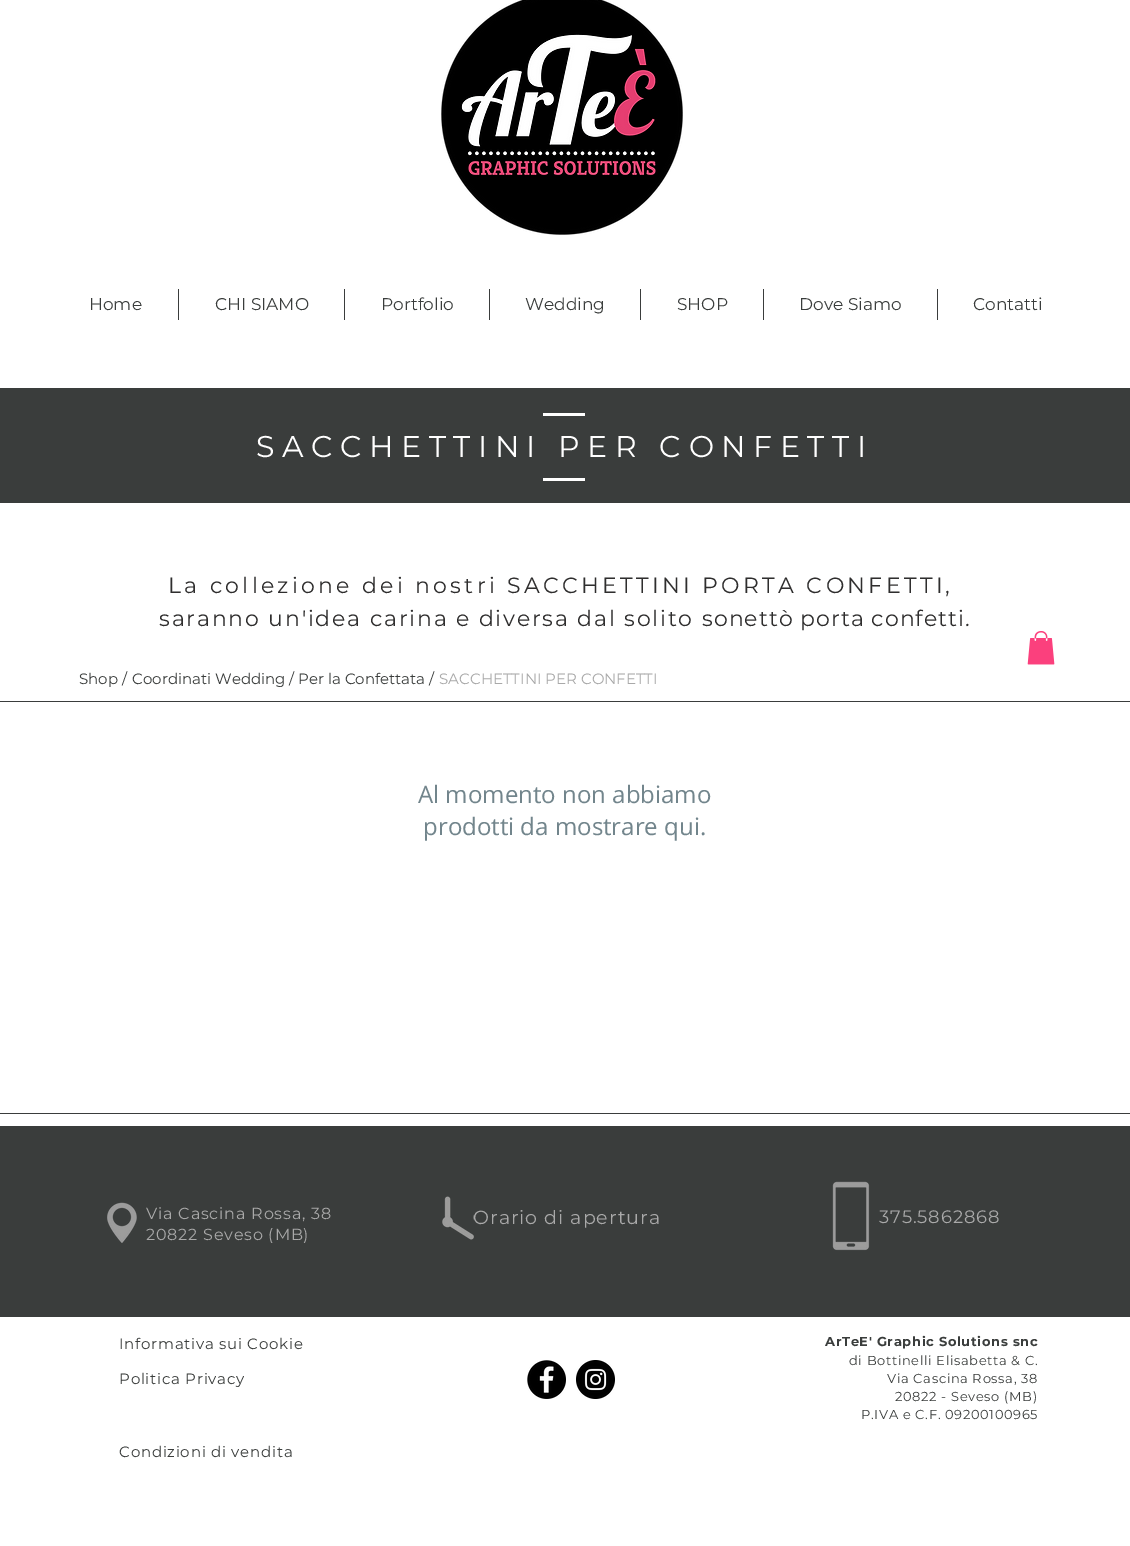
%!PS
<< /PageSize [1130 1546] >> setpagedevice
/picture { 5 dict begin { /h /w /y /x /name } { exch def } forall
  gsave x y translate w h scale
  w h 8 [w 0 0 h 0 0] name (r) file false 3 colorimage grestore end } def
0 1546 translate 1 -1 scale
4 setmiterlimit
1 setgray
0 0 1130 1546 rectfill
(img1.rgb) 441 0 242 235 picture
/Montserrat-Regular [17 0 0 -17 0 0] selectfont
0.227 0.239 0.235 setrgbcolor
89 310 moveto (Home) show
178 289 1 31 rectfill
215 310 moveto (CHI SIAMO) show
344 289 1 31 rectfill
381 310 moveto (Portfolio) show
489 289 1 31 rectfill
525 310 moveto (Wedding) show
640 289 1 31 rectfill
677 310 moveto (SHOP) show
763 289 1 31 rectfill
799 310 moveto (Dove Siamo) show
937 289 1 31 rectfill
973 310 moveto (Contatti) show
0 388 1130 115 rectfill
1 setgray
543 413 42 3 rectfill
/Montserrat-Regular [30 0 0 -30 0 0] selectfont
256 457 moveto 7.5 0 (SACCHETTINI PER CONFETTI) ashow
543 478 42 3 rectfill
/Montserrat-Regular [22 0 0 -22 0 0] selectfont
0.184 0.18 0.18 setrgbcolor
168 593 moveto 3.3 0 (La collezione dei nostri SACCHETTINI PORTA CONFETTI,) ashow
159 626 moveto 1.8 0 (saranno un'idea carina e diversa dal solito) ashow
702 626 moveto 1 0 (sonettò porta confetti.) ashow
(img2.rgb) 1027 631 28 34 picture
/Montserrat-Regular [15 0 0 -15 0 0] selectfont
0.227 0.239 0.235 setrgbcolor
79 684 moveto (Shop /) show
132 684 moveto (Coordinati Wedding /) show
298 684 moveto (Per la Confettata /) show
0.663 setgray
439 684 moveto (SACCHETTINI PER CONFETTI) show
0.227 0.239 0.235 setrgbcolor
0 701 1130 1 rectfill
/OpenSans-Regular [24 0 0 -24 0 0] selectfont
0.447 0.522 0.549 setrgbcolor
418 803 moveto (Al momento non abbiamo) show
423 835 moveto (prodotti da mostrare qui.) show
0.227 0.239 0.235 setrgbcolor
0 1113 1130 1 rectfill
0 1126 1130 191 rectfill
(img3.rgb) 107 1202 30 41 picture
/Montserrat-Regular [16 0 0 -16 0 0] selectfont
0.663 setgray
146 1219 moveto 0.8 0 (Via Cascina Rossa, 38) ashow
146 1240 moveto 0.8 0 (20822 Seveso \(MB\)) ashow
/Montserrat-Regular [19 0 0 -19 0 0] selectfont
473 1224 moveto 1 0 (Orario di apertura) ashow
(img4.rgb) 442 1196 32 44 picture
(img5.rgb) 832 1181 38 70 picture
/Montserrat-Regular [18 0 0 -18 0 0] selectfont
879 1223 moveto 0.9 0 (375.5862868) ashow
/Montserrat-Regular [15 0 0 -15 0 0] selectfont
0.227 0.239 0.235 setrgbcolor
119 1349 moveto 0.75 0 (Informativa sui Cookie) ashow
/Montserrat-Bold [13 0 0 -13 0 0] selectfont
825 1346 moveto 0.65 0 (ArTeE' Graphic Solutions snc) ashow
/Montserrat-Regular [13 0 0 -13 0 0] selectfont
849 1365 moveto 0.65 0 (di Bottinelli Elisabetta & C.) ashow
887 1383 moveto 0.65 0 (Via Cascina Rossa, 38) ashow
895 1401 moveto 0.65 0 (20822 - Seveso \(MB\)) ashow
861 1419 moveto 0.65 0 (P.IVA e C.F. 09200100965) ashow
/Montserrat-Regular [15 0 0 -15 0 0] selectfont
119 1384 moveto 0.75 0 (Politica Privacy) ashow
(img6.rgb) 527 1360 39 39 picture
(img7.rgb) 576 1360 39 39 picture
119 1457 moveto 0.75 0 (Condizioni di vendita) ashow
showpage
